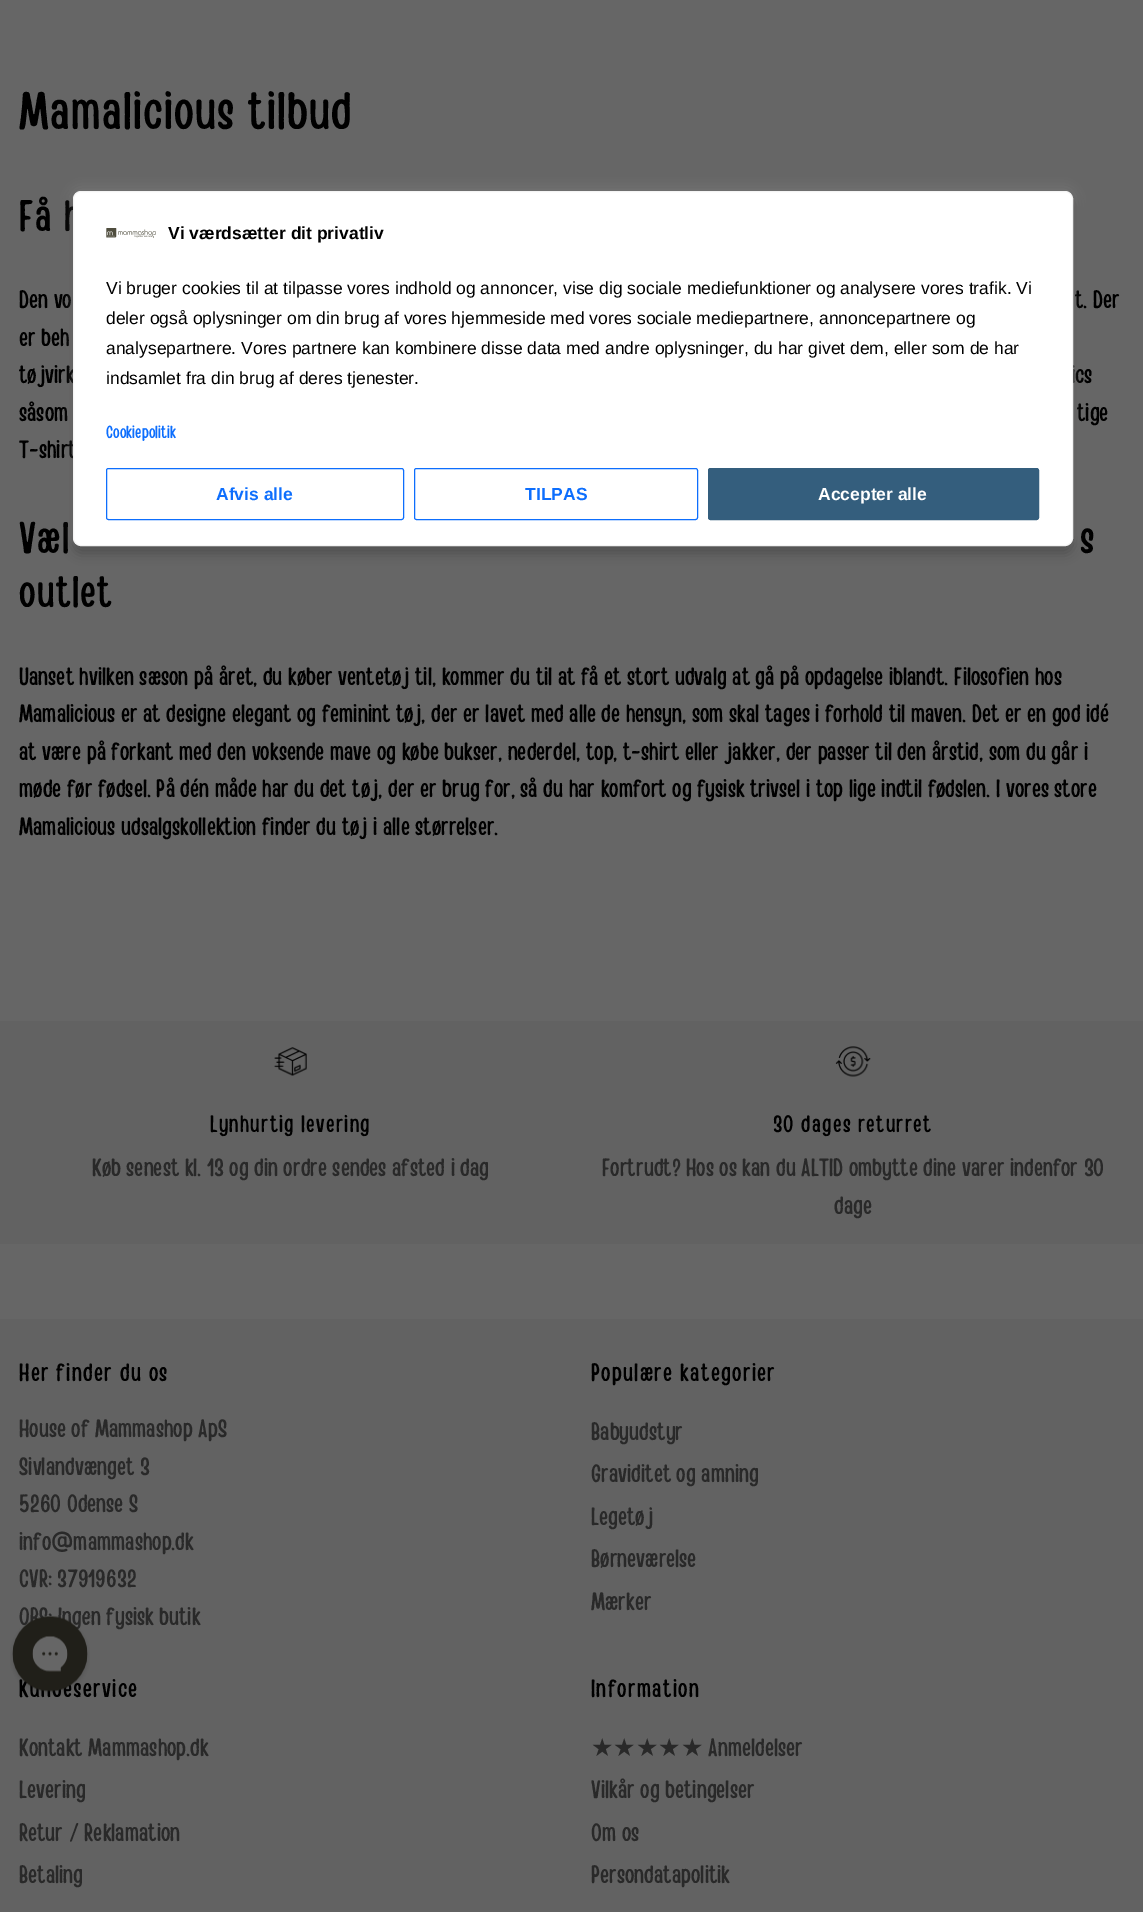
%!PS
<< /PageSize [1143 1912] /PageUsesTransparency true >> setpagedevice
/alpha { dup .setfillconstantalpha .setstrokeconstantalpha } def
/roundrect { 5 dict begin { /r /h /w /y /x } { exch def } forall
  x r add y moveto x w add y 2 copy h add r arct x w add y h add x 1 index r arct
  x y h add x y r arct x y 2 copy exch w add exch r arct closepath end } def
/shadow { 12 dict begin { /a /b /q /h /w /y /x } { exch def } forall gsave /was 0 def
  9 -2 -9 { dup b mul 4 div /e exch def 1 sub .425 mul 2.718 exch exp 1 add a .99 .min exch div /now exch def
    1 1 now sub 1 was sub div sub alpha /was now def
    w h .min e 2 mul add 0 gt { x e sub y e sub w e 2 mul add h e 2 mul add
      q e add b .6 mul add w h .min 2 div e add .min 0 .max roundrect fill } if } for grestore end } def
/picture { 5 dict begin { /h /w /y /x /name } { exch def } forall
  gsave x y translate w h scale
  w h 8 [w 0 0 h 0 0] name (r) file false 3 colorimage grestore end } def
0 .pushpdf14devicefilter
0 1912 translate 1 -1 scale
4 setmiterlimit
0.4 setgray
0 0 1143 1912 rectfill
/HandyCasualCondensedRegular-Regular [52.5 0 0 -52.5 0 0] selectfont
0 setgray
19 129 moveto 1.25 0 (Mamalicious tilbud) ashow
/HandyCasualCondensedRegular-Regular [44 0 0 -44 0 0] selectfont
19 231 moveto 1.25 0 (Få h) ashow
/HandyCasualCondensedRegular-Regular [25 0 0 -25 0 0] selectfont
19 308 moveto (Den vo) show
1075 308 moveto (t. Der) show
19 346 moveto (er beh) show
19 383 moveto (tøjvirk) show
1071 383 moveto (ics) show
19 421 moveto (såsom) show
1077 421 moveto (tige) show
19 458 moveto (T-shirt) show
/HandyCasualCondensedRegular-Regular [44 0 0 -44 0 0] selectfont
19 553 moveto 1.25 0 (Væl) ashow
1080 553 moveto 1.25 0 (s) ashow
19 607 moveto 1.25 0 (outlet) ashow
/HandyCasualCondensedRegular-Regular [25 0 0 -25 0 0] selectfont
19 685 moveto (Uanset hvilken sæson på året, du køber ventetøj til, kommer du til at få et stort udvalg at gå på opdagelse iblandt. Filosofien hos) show
19 722 moveto (Mamalicious er at designe elegant og feminint tøj, der er lavet med alle de hensyn, som skal tages i forhold til maven. Det er en god idé) show
19 760 moveto (at være på forkant med den voksende mave og købe bukser, nederdel, top, t-shirt eller jakker, der passer til den årstid, som du går i) show
19 797 moveto (møde før fødsel. På dén måde har du det tøj, der er brug for, så du har komfort og fysisk trivsel i top lige indtil fødslen. I vores store) show
19 835 moveto (Mamalicious udsalgskollektion finder du tøj i alle størrelser.) show
73 198 1000 355 8 6 0.3 shadow
0.675 0.671 0.671 setrgbcolor
73 190 1000 355 8 6 0.3 shadow
1 setgray
73.5 191.5 999 354 7.5 roundrect gsave fill grestore
0.957 setgray
stroke
(img1.rgb) 106 228 50 10 picture
/LiberationSans-Bold [17.5 0 0 -17.5 0 0] selectfont
0 setgray
168 239 moveto (Vi værdsætter dit privatliv) show
/LiberationSans-Regular [17.5 0 0 -17.5 0 0] selectfont
106 294 moveto (Vi bruger cookies til at tilpasse vores indhold og annoncer, vise dig sociale mediefunktioner og analysere vores trafik. Vi) show
106 324 moveto (deler også oplysninger om din brug af vores hjemmeside med vores sociale mediepartnere, annoncepartnere og) show
106 354 moveto (analysepartnere. Vores partnere kan kombinere disse data med andre oplysninger, du har givet dem, eller som de har) show
106 384 moveto (indsamlet fra din brug af deres tjenester.) show
/HandyCasualCondensedRegular-Regular [17.5 0 0 -17.5 0 0] selectfont
0.051 0.431 0.992 setrgbcolor
106 438 moveto (Cookiepolitik) show
106.5 468.5 297 51 2 roundrect stroke
/LiberationSans-Bold [17.5 0 0 -17.5 0 0] selectfont
216 500 moveto (Afvis alle) show
414.5 468.5 283 51 2 roundrect stroke
525 500 moveto (TILPAS) show
0.204 0.369 0.49 setrgbcolor
708.5 468.5 330 51 2 roundrect gsave fill grestore
stroke
1 setgray
818 500 moveto (Accepter alle) show
0.384 setgray
0 1021 1143 223 rectfill
(img2.rgb) 274 1047 33 29 picture
/HandyCasualCondensedRegular-Regular [23.75 0 0 -23.75 0 0] selectfont
0 setgray
210 1132 moveto 1.25 0 (Lynhurtig levering) ashow
/HandyCasualCondensedRegular-Regular [25 0 0 -25 0 0] selectfont
0.161 setgray
92 1176 moveto (Køb senest kl. 13 og din ordre sendes afsted i dag) show
(img3.rgb) 835 1046 36 31 picture
/HandyCasualCondensedRegular-Regular [23.75 0 0 -23.75 0 0] selectfont
0 setgray
773 1132 moveto 1.25 0 (30 dages returret) ashow
/HandyCasualCondensedRegular-Regular [25 0 0 -25 0 0] selectfont
0.161 setgray
602 1176 moveto (Fortrudt? Hos os kan du ALTID ombytte dine varer indenfor 30) show
834 1214 moveto (dage) show
0.384 setgray
0 1319 1143 593 rectfill
0 setgray
19 1381 moveto 1.25 0 (Her finder du os) ashow
0.161 setgray
19 1437 moveto (House of Mammashop ApS) show
19 1475 moveto (Sivlandvænget 3) show
19 1512 moveto (5260 Odense S) show
19 1550 moveto (info@mammashop.dk) show
19 1587 moveto (CVR: 37919632) show
19 1625 moveto (OBS: Ingen fysisk butik) show
0 setgray
591 1381 moveto 1.25 0 (Populære kategorier) ashow
0.161 setgray
591 1440 moveto (Babyudstyr) show
591 1482 moveto (Graviditet og amning) show
591 1525 moveto (Legetøj) show
591 1567 moveto (Børneværelse) show
591 1610 moveto (Mærker) show
0 setgray
19 1697 moveto 1.25 0 (Kundeservice) ashow
0.161 setgray
19 1756 moveto (Kontakt Mammashop.dk) show
19 1798 moveto (Levering) show
19 1841 moveto (Retur / Reklamation) show
19 1883 moveto (Betaling) show
0 setgray
591 1697 moveto 1.25 0 (Information) ashow
/DejaVuSans-Regular [25 0 0 -25 0 0] selectfont
0.161 setgray
591 1756 moveto (★★★★★) show
/HandyCasualCondensedRegular-Regular [25 0 0 -25 0 0] selectfont
708 1756 moveto (Anmeldelser) show
591 1798 moveto (Vilkår og betingelser) show
591 1841 moveto (Om os) show
591 1883 moveto (Persondatapolitik) show
(img4.rgb) 10 1615 80 81 picture
.poppdf14devicefilter showpage
